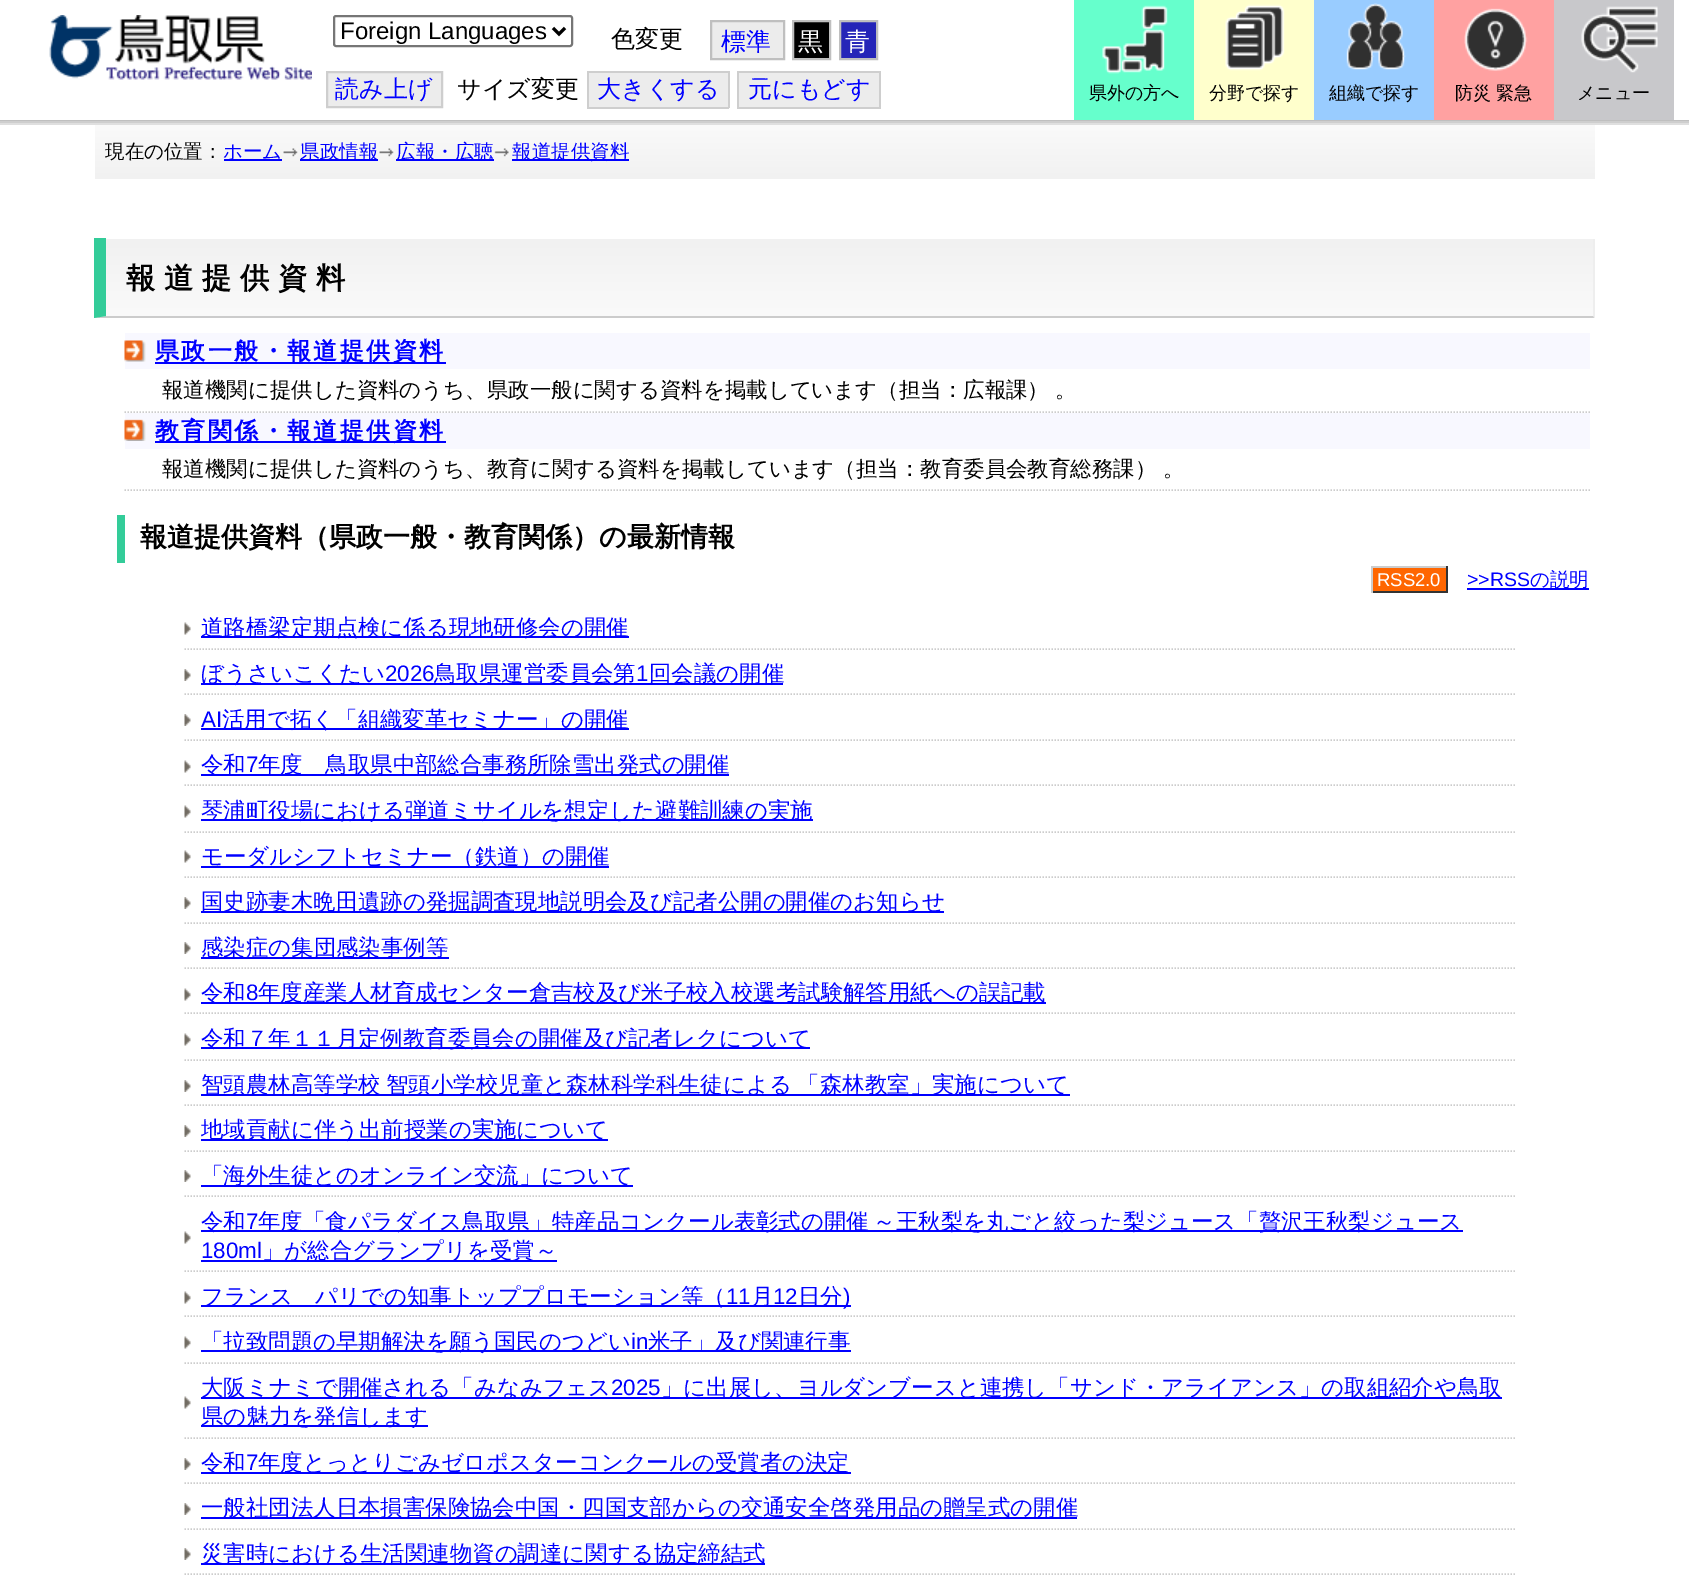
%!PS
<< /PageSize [1689 1575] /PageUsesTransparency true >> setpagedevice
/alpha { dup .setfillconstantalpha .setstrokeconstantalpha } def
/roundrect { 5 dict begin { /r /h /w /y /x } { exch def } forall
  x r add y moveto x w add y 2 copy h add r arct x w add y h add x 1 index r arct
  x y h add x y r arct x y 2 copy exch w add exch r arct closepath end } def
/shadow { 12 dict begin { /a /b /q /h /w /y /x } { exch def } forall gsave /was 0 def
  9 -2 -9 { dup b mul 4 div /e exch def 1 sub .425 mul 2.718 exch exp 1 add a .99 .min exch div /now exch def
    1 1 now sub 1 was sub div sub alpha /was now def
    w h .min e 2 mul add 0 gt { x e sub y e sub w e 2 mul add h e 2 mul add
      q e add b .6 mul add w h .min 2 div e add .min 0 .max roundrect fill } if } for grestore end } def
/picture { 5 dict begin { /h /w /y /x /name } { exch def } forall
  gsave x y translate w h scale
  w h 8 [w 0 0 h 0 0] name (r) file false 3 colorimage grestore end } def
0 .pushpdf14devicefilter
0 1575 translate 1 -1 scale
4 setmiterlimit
1 setgray
0 0 1689 1575 rectfill
gsave newpath 95 125 moveto 1595 125 lineto 1595 179 lineto 95 179 lineto closepath clip newpath
<< /ShadingType 2 /ColorSpace /DeviceRGB /Coords [845 124 845 179] /Extend [true true] /Function << /FunctionType 2 /Domain [0 1] /C0 [0.98 0.98 0.98] /C1 [0.945 0.945 0.945] /N 1 >> >> shfill grestore
gsave
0 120 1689 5 rectclip
0 setgray
-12 2 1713 120 0 4 0.1 shadow
-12 2 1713 120 0 4 0.1 shadow
-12 2 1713 120 0 4 0.1 shadow
-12 2 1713 120 0 4 0.1 shadow
grestore
(img1.rgb) 49 15 263 65 picture
0.463 setgray
2 setlinewidth
334 16 238 30 2 roundrect stroke
0 setgray
3 setlinewidth
newpath 553 28 moveto 559 34 lineto 565 28 lineto stroke
/LiberationSans-Regular [24 0 0 -24 0 0] selectfont
340 39 moveto (Foreign Languages) show
/WenQuanYiZenHei-Medium [24 0 0 -24 0 0] selectfont
611 47 moveto (色変更) show
0.925 setgray
newpath 711 21 moveto 784 21 lineto 784 59 lineto 711 59 lineto closepath gsave fill grestore
0.749 setgray
2 setlinewidth
stroke
/WenQuanYiZenHei-Medium [25 0 0 -25 0 0] selectfont
0 0 1 setrgbcolor
721 50 moveto (標準) show
0 setgray
newpath 793 21 moveto 830 21 lineto 830 59 lineto 793 59 lineto closepath gsave fill grestore
0.749 setgray
stroke
1 setgray
798 50 moveto (黒) show
0.145 0.145 0.722 setrgbcolor
newpath 840 21 moveto 877 21 lineto 877 59 lineto 840 59 lineto closepath gsave fill grestore
0.749 setgray
stroke
1 setgray
845 50 moveto (青) show
0.925 setgray
newpath 327 72 moveto 442 72 lineto 442 107 lineto 327 107 lineto closepath gsave fill grestore
0.808 setgray
stroke
/WenQuanYiZenHei-Medium [24 0 0 -24 0 0] selectfont
0 0 1 setrgbcolor
335 97 moveto (読み上げ) show
0 setgray
457 97 moveto (サイズ変更) show
0.925 setgray
589 73 139 34 rectfill
0 0 1 setrgbcolor
597 97 moveto (大きくする) show
0.808 setgray
587 71 142 2 rectfill
587 107 34 2 rectfill
587 71 2 37 rectfill
728 71 2 37 rectfill
621 107 108 2 rectfill
0.925 setgray
739 73 140 34 rectfill
0 0 1 setrgbcolor
748 97 moveto (元にもどす) show
0.808 setgray
737 71 144 2 rectfill
737 107 34 2 rectfill
737 71 2 37 rectfill
879 71 2 37 rectfill
771 107 110 2 rectfill
0.4 1 0.8 setrgbcolor
1074 0 120 120 rectfill
(img2.rgb) 1102 5 66 69 picture
/WenQuanYiZenHei-Medium [18 0 0 -18 0 0] selectfont
0 setgray
1089 99 moveto (県外の方へ) show
1 1 0.8 setrgbcolor
1194 0 120 120 rectfill
(img3.rgb) 1225 4 60 67 picture
0 setgray
1209 99 moveto (分野で探す) show
0.6 0.8 1 setrgbcolor
1314 0 120 120 rectfill
(img4.rgb) 1346 3 60 67 picture
0 setgray
1329 99 moveto (組織で探す) show
1 0.631 0.631 setrgbcolor
1434 0 120 120 rectfill
(img5.rgb) 1464 8 64 63 picture
0 setgray
1455 99 moveto (防災 緊急) show
0.784 0.784 0.796 setrgbcolor
1554 0 120 120 rectfill
(img6.rgb) 1581 6 77 67 picture
0 setgray
1577 99 moveto (メニュー) show
/WenQuanYiZenHei-Medium [19.5 0 0 -19.5 0 0] selectfont
105 158 moveto (現在の位置：) show
0 0 1 setrgbcolor
224 159 58 2 rectfill
223 158 moveto (ホーム) show
(img7.rgb) 283 148 15 9 picture
300 159 78 2 rectfill
300 158 moveto (県政情報) show
(img7.rgb) 379 148 15 9 picture
396 159 98 2 rectfill
396 158 moveto (広報・広聴) show
(img8.rgb) 494 148 15 9 picture
512 159 117 2 rectfill
512 158 moveto (報道提供資料) show
gsave newpath 100 239 moveto 1593 239 lineto 1593 317 lineto 100 317 lineto closepath clip newpath
<< /ShadingType 2 /ColorSpace /DeviceRGB /Coords [850 238 850 317] /Extend [true true] /Function << /FunctionType 2 /Domain [0 1] /C0 [0.945 0.945 0.945] /C1 [0.98 0.98 0.98] /N 1 >> >> shfill grestore
0.933 setgray
1593 239 2 79 rectfill
0.8 setgray
newpath 1594 318 moveto 94 318 lineto 106 316 lineto 1593 316 lineto closepath fill
0.2 0.8 0.6 setrgbcolor
newpath 94 318 moveto 94 238 lineto 106 238 lineto 106 316 lineto closepath fill
/WenQuanYiZenHei-Bold [29.25 0 0 -29.25 0 0] selectfont
0 setgray
126 288 moveto 8.75 0 (報道提供資料) ashow
0.973 0.973 1 setrgbcolor
125 333 1465 36 rectfill
(img9.rgb) 124 340 22 22 picture
0 0 1 setrgbcolor
155 362 291 2 rectfill
/WenQuanYiZenHei-Bold [24 0 0 -24 0 0] selectfont
155 359 moveto 2.4 0 (県政一般・報道提供資料) ashow
0.8 setgray
1.5 setlinewidth
[1.5 1.5] 0 setdash
newpath 124.5 412 moveto 1590 412 lineto stroke
/WenQuanYiZenHei-Medium [21.45 0 0 -21.45 0 0] selectfont
0 setgray
162 397 moveto (報道機関に提供した資料のうち、県政一般に関する資料を掲載しています（担当：広報課） 。) show
0.973 0.973 1 setrgbcolor
125 413 1465 36 rectfill
(img10.rgb) 124 419 22 22 picture
0 0 1 setrgbcolor
155 441 291 2 rectfill
/WenQuanYiZenHei-Bold [24 0 0 -24 0 0] selectfont
155 439 moveto 2.4 0 (教育関係・報道提供資料) ashow
0.8 setgray
newpath 124.5 490 moveto 1590 490 lineto stroke
/WenQuanYiZenHei-Medium [21.45 0 0 -21.45 0 0] selectfont
0 setgray
162 476 moveto (報道機関に提供した資料のうち、教育に関する資料を掲載しています（担当：教育委員会教育総務課） 。) show
0.2 0.8 0.6 setrgbcolor
117 515 8 48 rectfill
/WenQuanYiZenHei-Bold [27 0 0 -27 0 0] selectfont
0 setgray
140 546 moveto (報道提供資料（県政一般・教育関係）の最新情報) show
1 0.4 0 setrgbcolor
1373 568 73 23 rectfill
/LiberationSans-Regular [18.5 0 0 -18.5 0 0] selectfont
1 setgray
1377 586 moveto (RSS2.0) show
0.8 setgray
1371 566 77 2 rectfill
0.2 setgray
1446 566 2 27 rectfill
1371 591 77 2 rectfill
0.8 setgray
1371 566 2 27 rectfill
/LiberationSans-Regular [19.5 0 0 -19.5 0 0] selectfont
0 0 1 setrgbcolor
1467 586 moveto (>>RSS) show
1467 588 122 2 rectfill
/WenQuanYiZenHei-Medium [19.5 0 0 -19.5 0 0] selectfont
1530 586 moveto (の説明) show
(img11.rgb) 184 622 7 13 picture
0.8 setgray
newpath 184.5 649 moveto 1516.5 649 lineto stroke
0 0 1 setrgbcolor
201 636 428 2 rectfill
/WenQuanYiZenHei-Medium [22.42 0 0 -22.42 0 0] selectfont
201 635 moveto (道路橋梁定期点検に係る現地研修会の開催) show
(img12.rgb) 184 669 7 12 picture
0.8 setgray
newpath 184.5 694 moveto 1516.5 694 lineto stroke
0 0 1 setrgbcolor
201 683 582 2 rectfill
201 681 moveto (ぼうさいこくたい) show
/LiberationSans-Regular [22.42 0 0 -22.42 0 0] selectfont
385 681 moveto (2026) show
/WenQuanYiZenHei-Medium [22.42 0 0 -22.42 0 0] selectfont
434 681 moveto (鳥取県運営委員会第) show
/LiberationSans-Regular [22.42 0 0 -22.42 0 0] selectfont
636 681 moveto (1) show
/WenQuanYiZenHei-Medium [22.42 0 0 -22.42 0 0] selectfont
649 681 moveto (回会議の開催) show
(img12.rgb) 184 714 7 12 picture
0.8 setgray
newpath 184.5 740 moveto 1516.5 740 lineto stroke
/LiberationSans-Regular [22.42 0 0 -22.42 0 0] selectfont
0 0 1 setrgbcolor
201 727 moveto (AI) show
201 728 428 2 rectfill
/WenQuanYiZenHei-Medium [22.42 0 0 -22.42 0 0] selectfont
222 727 moveto (活用で拓く「組織変革セミナー」の開催) show
(img11.rgb) 184 760 7 13 picture
0.8 setgray
newpath 184.5 785 moveto 1516.5 785 lineto stroke
0 0 1 setrgbcolor
201 774 528 2 rectfill
201 772 moveto (令和) show
/LiberationSans-Regular [22.42 0 0 -22.42 0 0] selectfont
246 772 moveto (7) show
/WenQuanYiZenHei-Medium [22.42 0 0 -22.42 0 0] selectfont
258 772 moveto (年度　鳥取県中部総合事務所除雪出発式の開催) show
(img11.rgb) 184 805 7 13 picture
0.8 setgray
newpath 184.5 832 moveto 1516.5 832 lineto stroke
0 0 1 setrgbcolor
201 819 612 2 rectfill
201 818 moveto (琴浦町役場における弾道ミサイルを想定した避難訓練の実施) show
(img11.rgb) 184 850 7 13 picture
0.8 setgray
newpath 184.5 877 moveto 1516.5 877 lineto stroke
0 0 1 setrgbcolor
201 866 408 2 rectfill
201 864 moveto (モーダルシフトセミナー（鉄道）の開催) show
(img12.rgb) 184 897 7 12 picture
0.8 setgray
newpath 184.5 923 moveto 1516.5 923 lineto stroke
0 0 1 setrgbcolor
201 911 743 2 rectfill
201 909 moveto (国史跡妻木晩田遺跡の発掘調査現地説明会及び記者公開の開催のお知らせ) show
(img12.rgb) 184 942 7 12 picture
0.8 setgray
newpath 184.5 968 moveto 1516.5 968 lineto stroke
0 0 1 setrgbcolor
201 957 248 2 rectfill
201 955 moveto (感染症の集団感染事例等) show
(img11.rgb) 184 988 7 13 picture
0.8 setgray
newpath 184.5 1013 moveto 1516.5 1013 lineto stroke
0 0 1 setrgbcolor
201 1002 845 2 rectfill
201 1000 moveto (令和) show
/LiberationSans-Regular [22.42 0 0 -22.42 0 0] selectfont
246 1000 moveto (8) show
/WenQuanYiZenHei-Medium [22.42 0 0 -22.42 0 0] selectfont
258 1000 moveto (年度産業人材育成センター倉吉校及び米子校入校選考試験解答用紙への誤記載) show
(img11.rgb) 184 1033 7 13 picture
0.8 setgray
newpath 184.5 1060 moveto 1516.5 1060 lineto stroke
0 0 1 setrgbcolor
201 1047 609 2 rectfill
201 1046 moveto (令和７年１１月定例教育委員会の開催及び記者レクについて) show
(img12.rgb) 184 1080 7 12 picture
0.8 setgray
newpath 184.5 1105 moveto 1516.5 1105 lineto stroke
0 0 1 setrgbcolor
201 1094 869 2 rectfill
201 1092 moveto -1 0 32 (智頭農林高等学校 智頭小学校児童と森林科学科生徒による 「森林教室」実施について) widthshow
(img12.rgb) 184 1125 7 12 picture
0.8 setgray
newpath 184.5 1151 moveto 1516.5 1151 lineto stroke
0 0 1 setrgbcolor
201 1139 407 2 rectfill
201 1137 moveto (地域貢献に伴う出前授業の実施について) show
(img12.rgb) 184 1170 7 12 picture
0.8 setgray
newpath 184.5 1196 moveto 1516.5 1196 lineto stroke
0 0 1 setrgbcolor
201 1185 432 2 rectfill
201 1183 moveto (「海外生徒とのオンライン交流」について) show
(img11.rgb) 184 1231 7 13 picture
0.8 setgray
newpath 184.5 1271 moveto 1516.5 1271 lineto stroke
0 0 1 setrgbcolor
201 1230 1262 2 rectfill
201 1229 moveto (令和) show
/LiberationSans-Regular [22.42 0 0 -22.42 0 0] selectfont
246 1229 moveto (7) show
/WenQuanYiZenHei-Medium [22.42 0 0 -22.42 0 0] selectfont
258 1229 moveto -2 0 32 (年度「食パラダイス鳥取県」特産品コンクール表彰式の開催 ～王秋梨を丸ごと絞った梨ジュース「贅沢王秋梨ジュース) widthshow
/LiberationSans-Regular [22.42 0 0 -22.42 0 0] selectfont
201 1258 moveto (180ml) show
201 1260 356 2 rectfill
/WenQuanYiZenHei-Medium [22.42 0 0 -22.42 0 0] selectfont
262 1258 moveto (」が総合グランプリを受賞～) show
(img11.rgb) 184 1291 7 13 picture
0.8 setgray
newpath 184.5 1316 moveto 1516.5 1316 lineto stroke
0 0 1 setrgbcolor
201 1305 650 2 rectfill
201 1304 moveto (フランス　パリでの知事トッププロモーション等（) show
/LiberationSans-Regular [22.42 0 0 -22.42 0 0] selectfont
726 1304 moveto (11) show
/WenQuanYiZenHei-Medium [22.42 0 0 -22.42 0 0] selectfont
751 1304 moveto (月) show
/LiberationSans-Regular [22.42 0 0 -22.42 0 0] selectfont
773 1304 moveto (12) show
/WenQuanYiZenHei-Medium [22.42 0 0 -22.42 0 0] selectfont
798 1304 moveto (日分) show
/LiberationSans-Regular [22.42 0 0 -22.42 0 0] selectfont
843 1304 moveto (\)) show
(img11.rgb) 184 1336 7 13 picture
0.8 setgray
newpath 184.5 1363 moveto 1516.5 1363 lineto stroke
0 0 1 setrgbcolor
201 1350 650 2 rectfill
/WenQuanYiZenHei-Medium [22.42 0 0 -22.42 0 0] selectfont
201 1349 moveto (「拉致問題の早期解決を願う国民のつどい) show
/LiberationSans-Regular [22.42 0 0 -22.42 0 0] selectfont
631 1349 moveto (in) show
/WenQuanYiZenHei-Medium [22.42 0 0 -22.42 0 0] selectfont
648 1349 moveto (米子」及び関連行事) show
(img11.rgb) 184 1396 7 13 picture
0.8 setgray
newpath 184.5 1438 moveto 1516.5 1438 lineto stroke
0 0 1 setrgbcolor
201 1397 1301 2 rectfill
201 1395 moveto (大阪ミナミで開催される「みなみフェス) show
/LiberationSans-Regular [22.42 0 0 -22.42 0 0] selectfont
611 1395 moveto (2025) show
/WenQuanYiZenHei-Medium [22.42 0 0 -22.42 0 0] selectfont
661 1395 moveto (」に出展し、ヨルダンブースと連携し「サンド・アライアンス」の取組紹介や鳥取) show
201 1425 227 2 rectfill
201 1424 moveto (県の魅力を発信します) show
(img12.rgb) 184 1458 7 12 picture
0.8 setgray
newpath 184.5 1483 moveto 1516.5 1483 lineto stroke
0 0 1 setrgbcolor
201 1472 650 2 rectfill
201 1470 moveto (令和) show
/LiberationSans-Regular [22.42 0 0 -22.42 0 0] selectfont
246 1470 moveto (7) show
/WenQuanYiZenHei-Medium [22.42 0 0 -22.42 0 0] selectfont
258 1470 moveto (年度とっとりごみゼロポスターコンクールの受賞者の決定) show
(img12.rgb) 184 1503 7 12 picture
0.8 setgray
newpath 184.5 1529 moveto 1516.5 1529 lineto stroke
0 0 1 setrgbcolor
201 1517 876 2 rectfill
201 1515 moveto (一般社団法人日本損害保険協会中国・四国支部からの交通安全啓発用品の贈呈式の開催) show
(img12.rgb) 184 1548 7 12 picture
0.8 setgray
newpath 184.5 1574 moveto 1516.5 1574 lineto stroke
0 0 1 setrgbcolor
201 1563 564 2 rectfill
201 1561 moveto (災害時における生活関連物資の調達に関する協定締結式) show
.poppdf14devicefilter showpage
